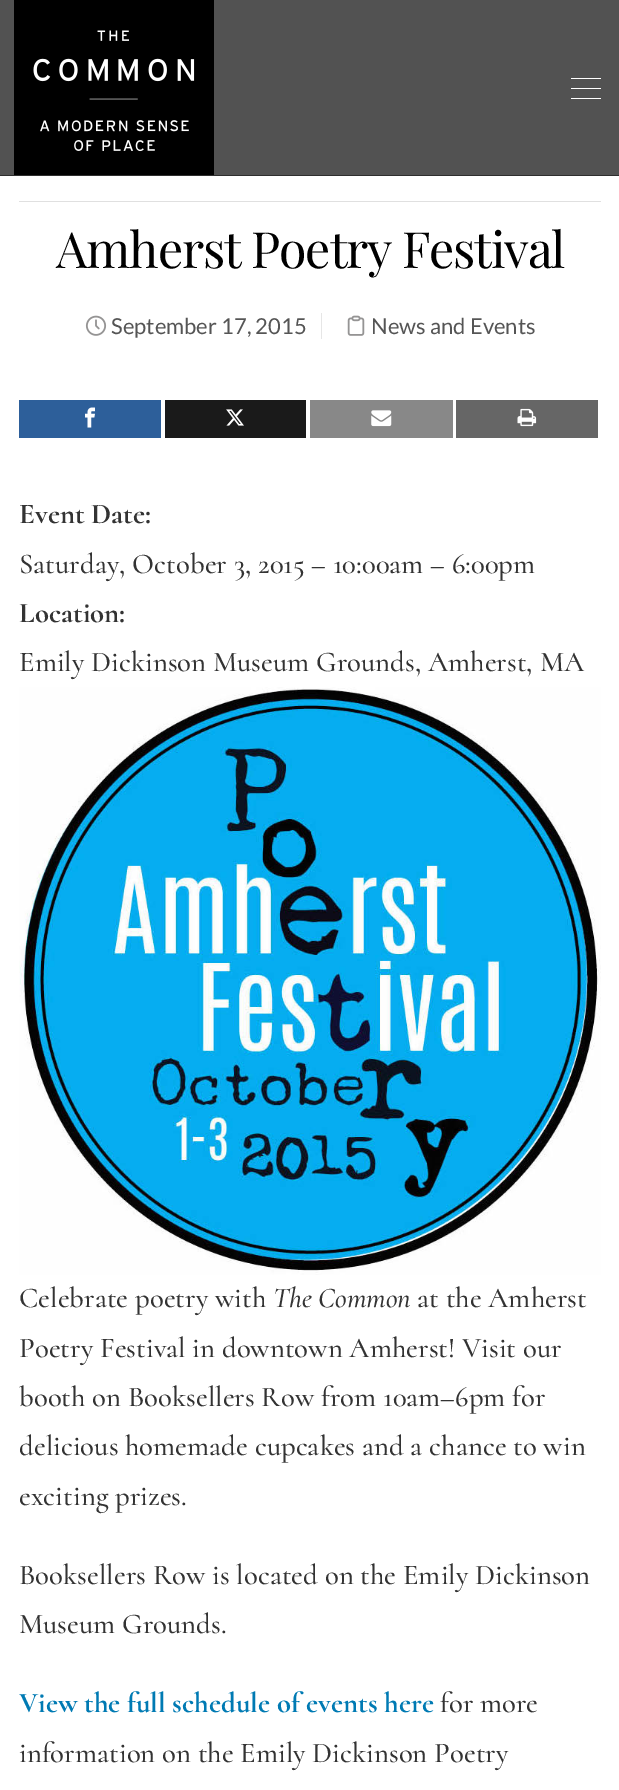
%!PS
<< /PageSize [619 1790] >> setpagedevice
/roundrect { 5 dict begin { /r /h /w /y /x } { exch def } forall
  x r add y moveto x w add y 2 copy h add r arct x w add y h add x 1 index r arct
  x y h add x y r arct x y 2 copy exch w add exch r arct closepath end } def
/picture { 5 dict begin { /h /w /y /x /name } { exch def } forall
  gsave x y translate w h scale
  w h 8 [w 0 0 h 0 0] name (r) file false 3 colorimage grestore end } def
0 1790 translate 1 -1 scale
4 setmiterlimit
1 setgray
0 0 619 1790 rectfill
0.18 setgray
0 175 619 1 rectfill
0.322 setgray
0 0 619 175 rectfill
(img1.rgb) 14 0 200 175 picture
1 setgray
571 78 30 1 0.5 roundrect fill
571 88 30 1 0.5 roundrect fill
571 98 30 1 0.5 roundrect fill
0.878 setgray
19 201 582 1 rectfill
/PlayfairDisplay-Regular [50 0 0 -50 0 0] selectfont
0 setgray
56 268 moveto -1.25 0 (Amherst Poetry Festival) ashow
0.902 setgray
321 313 1 26 rectfill
(img2.rgb) 85 315 22 21 picture
/Lato-Regular [22 0 0 -22 0 0] selectfont
0.333 setgray
111 334 moveto (September 17, 2015) show
(img3.rgb) 347 315 18 21 picture
371 334 moveto (News and Events) show
0.176 0.373 0.604 setrgbcolor
19 400 142 38 rectfill
(img4.rgb) 85 407 10 21 picture
0.102 setgray
165 400 141 38 rectfill
(img5.rgb) 226 409 18 17 picture
0.533 setgray
310 400 143 38 rectfill
(img6.rgb) 371 410 21 17 picture
0.4 setgray
456 400 142 38 rectfill
(img7.rgb) 517 408 20 19 picture
/Cormorant-Bold [28.75 0 0 -28.75 0 0] selectfont
0.2 setgray
19 523 moveto (Event Date:) show
/Cormorant-Medium [28.75 0 0 -28.75 0 0] selectfont
19 573 moveto (Saturday, October 3, 2015 – 10:00am – 6:00pm) show
/Cormorant-Bold [28.75 0 0 -28.75 0 0] selectfont
19 622 moveto (Location:) show
/Cormorant-Medium [28.75 0 0 -28.75 0 0] selectfont
19 671 moveto (Emily Dickinson Museum Grounds, Amherst, MA) show
(img8.rgb) 19 687 582 588 picture
19 1307 moveto (Celebrate poetry with) show
/Cormorant-MediumItalic [28.75 0 0 -28.75 0 0] selectfont
273 1307 moveto (The Common) show
/Cormorant-Medium [28.75 0 0 -28.75 0 0] selectfont
417 1307 moveto (at the Amherst) show
19 1357 moveto (Poetry Festival in downtown Amherst! Visit our) show
19 1406 moveto (booth on Booksellers Row from 10am–6pm for) show
19 1455 moveto (delicious homemade cupcakes and a chance to win) show
19 1505 moveto (exciting prizes.) show
19 1584 moveto (Booksellers Row is located on the Emily Dickinson) show
19 1633 moveto (Museum Grounds.) show
/Cormorant-Bold [28.75 0 0 -28.75 0 0] selectfont
0 0.478 0.702 setrgbcolor
19 1712 moveto (View the full schedule of events here) show
/Cormorant-Medium [28.75 0 0 -28.75 0 0] selectfont
0.2 setgray
440 1712 moveto (for more) show
19 1762 moveto (information on the Emily Dickinson Poetry) show
showpage
